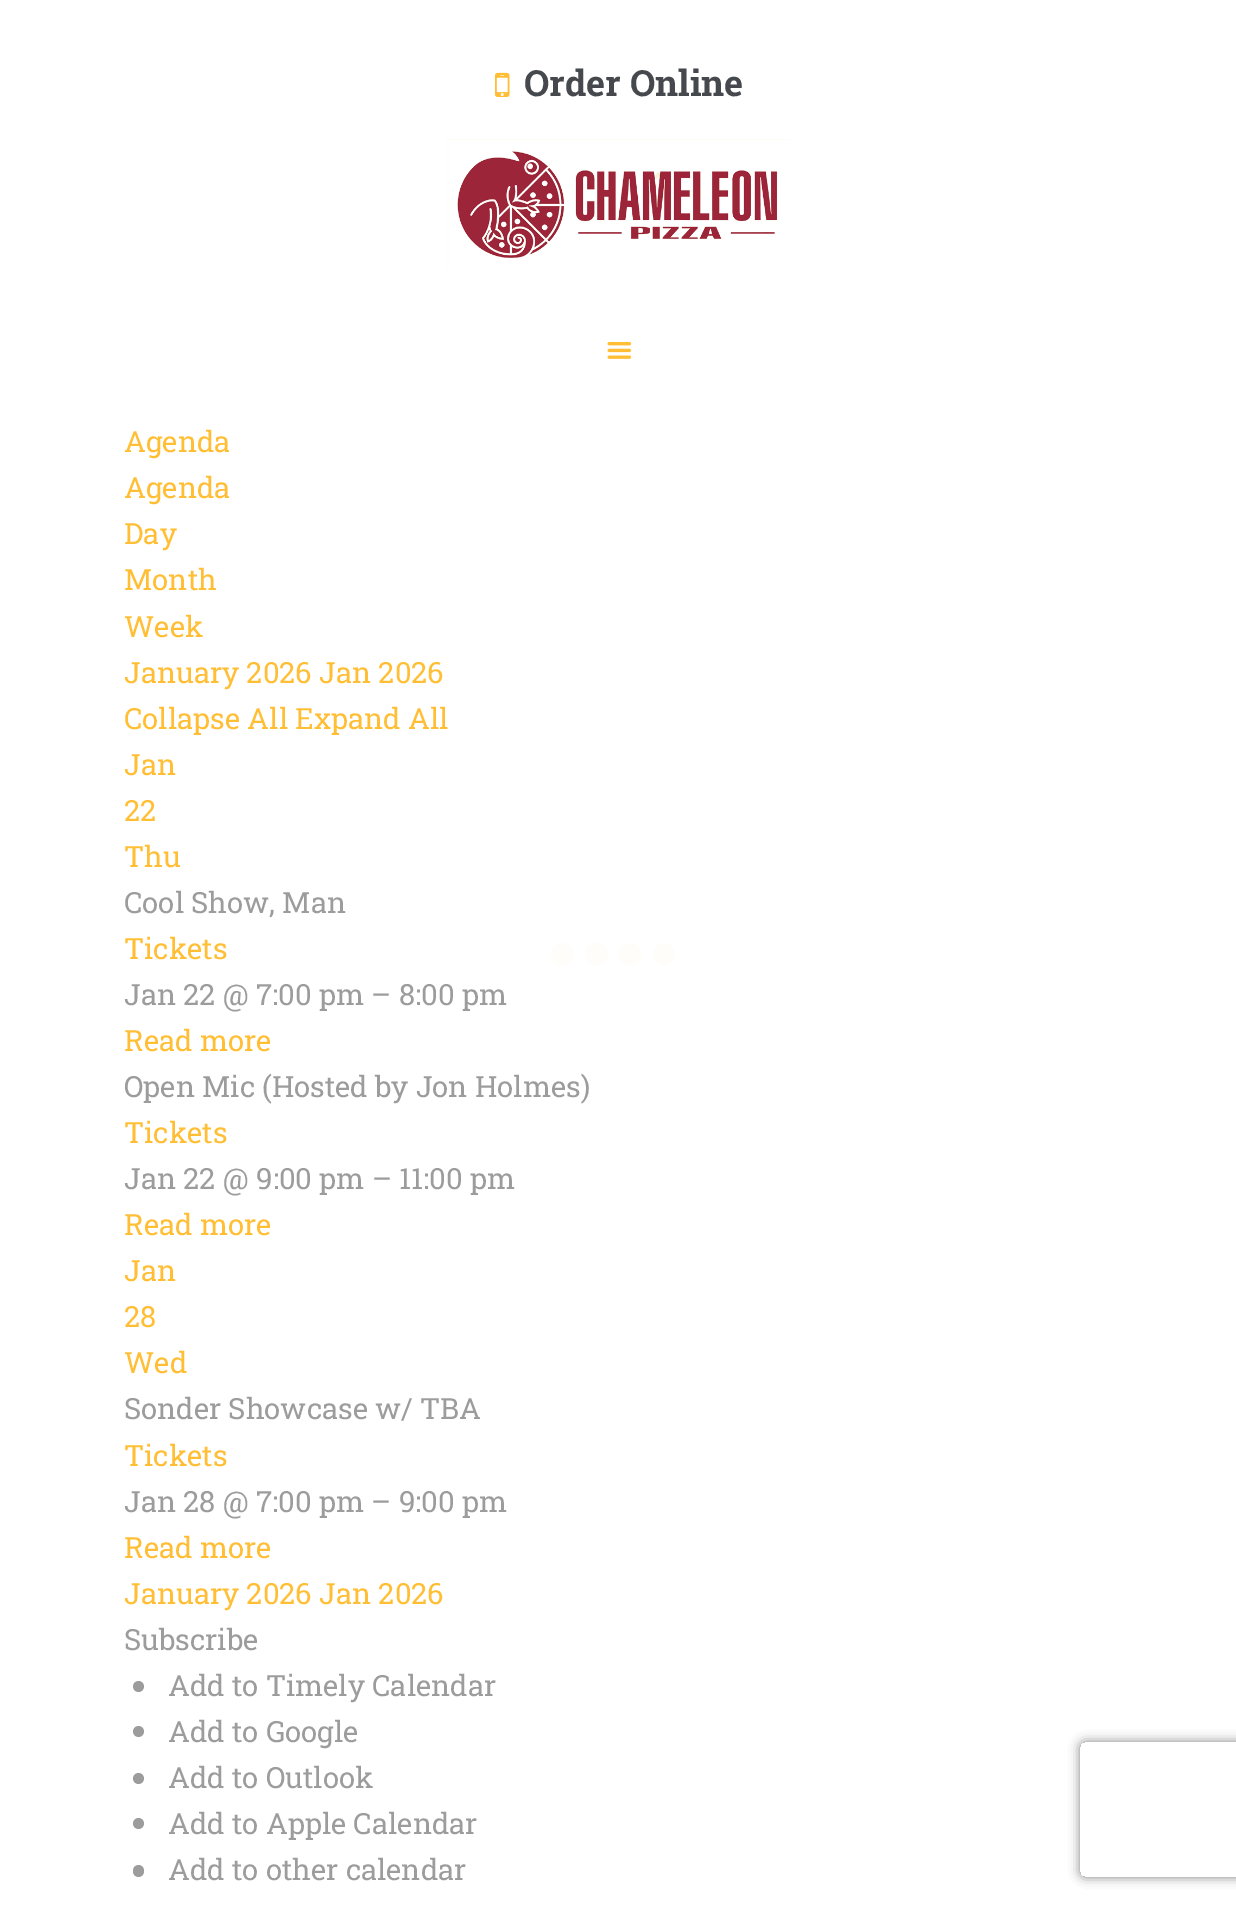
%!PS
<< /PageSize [1236 1908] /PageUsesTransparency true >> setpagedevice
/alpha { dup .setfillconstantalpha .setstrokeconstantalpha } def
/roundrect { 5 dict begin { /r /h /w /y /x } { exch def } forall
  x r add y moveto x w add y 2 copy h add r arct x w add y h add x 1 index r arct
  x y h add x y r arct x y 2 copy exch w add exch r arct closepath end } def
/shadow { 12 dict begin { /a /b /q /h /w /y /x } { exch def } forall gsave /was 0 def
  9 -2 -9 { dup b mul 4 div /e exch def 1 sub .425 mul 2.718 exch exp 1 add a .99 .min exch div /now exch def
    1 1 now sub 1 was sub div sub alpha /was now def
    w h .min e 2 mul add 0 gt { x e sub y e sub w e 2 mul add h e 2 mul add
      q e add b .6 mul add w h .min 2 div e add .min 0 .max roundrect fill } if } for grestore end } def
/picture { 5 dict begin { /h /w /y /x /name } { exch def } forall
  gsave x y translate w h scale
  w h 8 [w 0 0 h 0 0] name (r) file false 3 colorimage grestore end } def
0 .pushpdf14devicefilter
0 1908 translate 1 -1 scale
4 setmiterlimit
1 setgray
0 0 1236 1908 rectfill
(img1.rgb) 495 72 15 25 picture
/RobotoSlab-Bold [36 0 0 -36 0 0] selectfont
0.271 0.286 0.302 setrgbcolor
524 96 moveto (Order Online) show
(img2.rgb) 447 139 343 130 picture
(img3.rgb) 607 342 25 17 picture
/RobotoSlab-Regular [29.25 0 0 -29.25 0 0] selectfont
1 0.745 0.2 setrgbcolor
124 452 moveto (Agenda) show
124 498 moveto (Agenda) show
124 544 moveto (Day) show
124 590 moveto (Month) show
124 637 moveto (Week) show
124 683 moveto (January 2026 Jan 2026) show
124 729 moveto (Collapse All Expand All) show
124 775 moveto (Jan) show
124 821 moveto (22) show
124 867 moveto (Thu) show
0.612 setgray
124 913 moveto (Cool Show, Man) show
1 0.745 0.2 setrgbcolor
124 959 moveto (Tickets) show
0.612 setgray
124 1005 moveto (Jan 22 @ 7:00 pm – 8:00 pm) show
1 0.745 0.2 setrgbcolor
124 1051 moveto (Read more) show
0.612 setgray
124 1097 moveto (Open Mic \(Hosted by Jon Holmes\)) show
1 0.745 0.2 setrgbcolor
124 1143 moveto (Tickets) show
0.612 setgray
124 1189 moveto (Jan 22 @ 9:00 pm – 11:00 pm) show
1 0.745 0.2 setrgbcolor
124 1235 moveto (Read more) show
124 1281 moveto (Jan) show
124 1327 moveto (28) show
124 1373 moveto (Wed) show
0.612 setgray
124 1419 moveto (Sonder Showcase w/ TBA) show
1 0.745 0.2 setrgbcolor
124 1466 moveto (Tickets) show
0.612 setgray
124 1512 moveto (Jan 28 @ 7:00 pm – 9:00 pm) show
1 0.745 0.2 setrgbcolor
124 1558 moveto (Read more) show
124 1604 moveto (January 2026 Jan 2026) show
0.612 setgray
124 1650 moveto (Subscribe) show
newpath 138.5 1686.5 5.5 0 360 arc closepath fill
168 1696 moveto (Add to Timely Calendar) show
newpath 138.5 1731.5 5.5 0 360 arc closepath fill
168 1742 moveto (Add to Google) show
newpath 138.5 1778.5 5.5 0 360 arc closepath fill
168 1788 moveto (Add to Outlook) show
newpath 138.5 1823.5 5.5 0 360 arc closepath fill
168 1834 moveto (Add to Apple Calendar) show
133 1865 11 12 5.5 roundrect fill
168 1880 moveto (Add to other calendar) show
1 0.992 0.98 setrgbcolor
551 943 23 22 11 roundrect fill
585 943 23 22 11 roundrect fill
newpath 630 954 11 0 360 arc closepath fill
newpath 664 954 11 0 360 arc closepath fill
gsave
newpath 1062 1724 moveto 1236 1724 lineto 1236 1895 lineto 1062 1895 lineto closepath 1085 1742 moveto 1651 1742 lineto 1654 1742 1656 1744 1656 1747 curveto 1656 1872 lineto 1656 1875 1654 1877 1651 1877 curveto 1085 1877 lineto 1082 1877 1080 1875 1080 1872 curveto 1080 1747 lineto 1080 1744 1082 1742 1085 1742 curveto closepath eoclip newpath
0.514 setgray
1080 1742 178 135 5 5.5 1 shadow
grestore
.poppdf14devicefilter showpage
